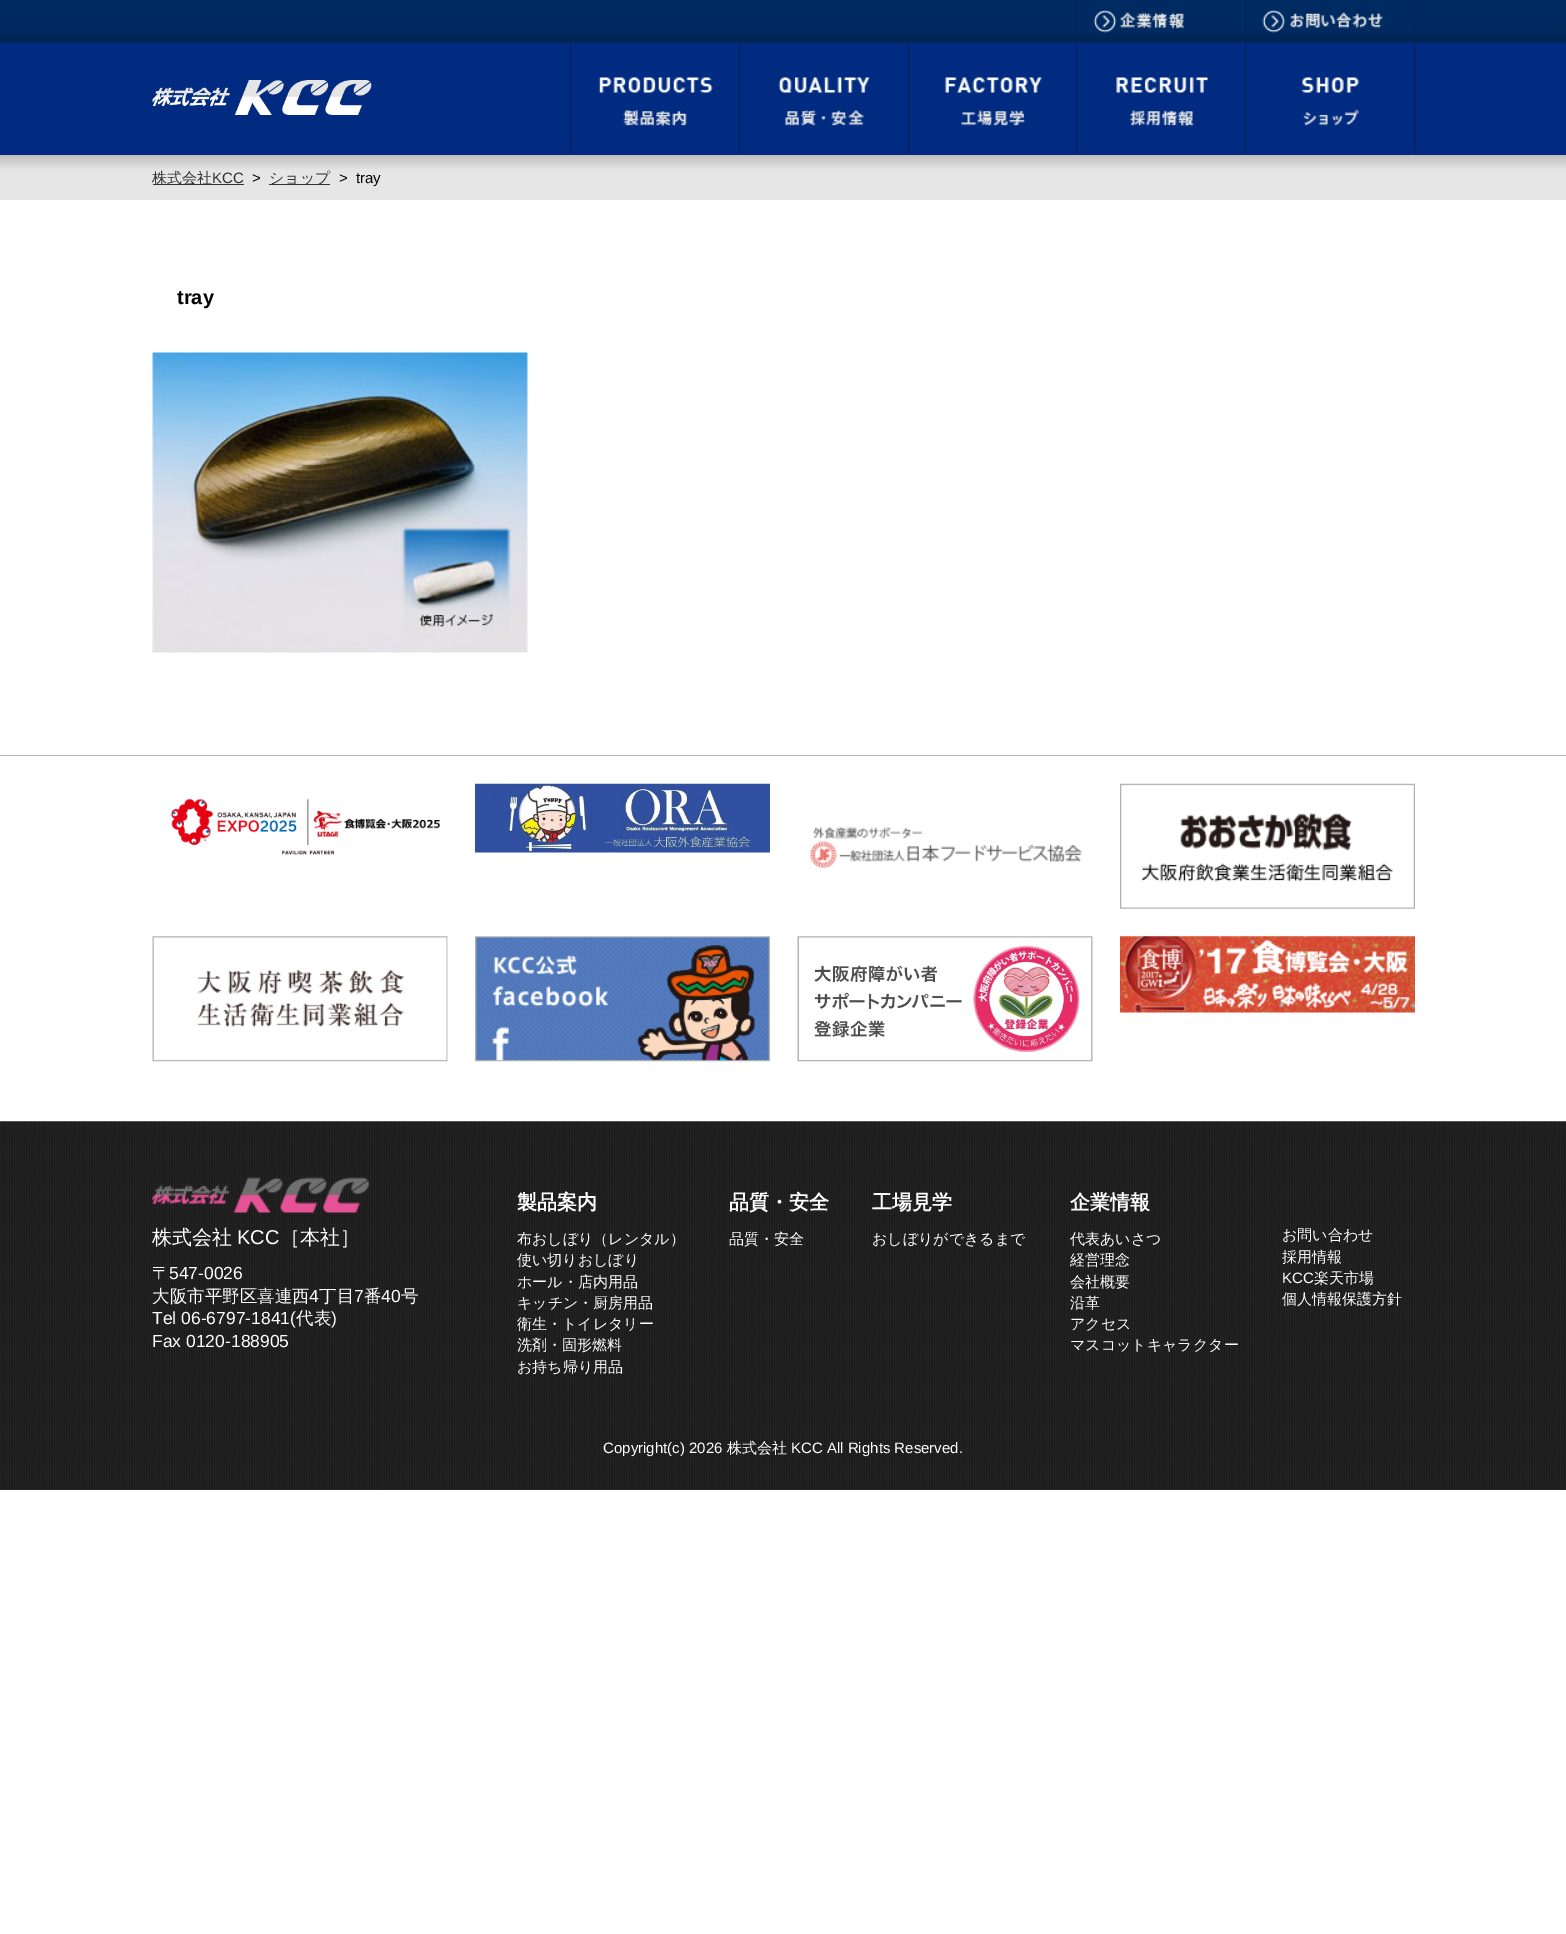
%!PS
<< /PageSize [1566 1934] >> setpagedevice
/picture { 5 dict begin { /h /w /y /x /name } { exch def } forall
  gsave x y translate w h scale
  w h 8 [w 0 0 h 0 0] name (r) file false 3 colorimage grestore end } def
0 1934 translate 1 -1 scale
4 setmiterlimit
1 setgray
0 0 1566 1934 rectfill
0 0.169 0.502 setrgbcolor
0 42 1566 113 rectfill
(img1.rgb) 0 0 1566 43 picture
(img2.rgb) 152 80 220 35 picture
0 0.122 0.341 setrgbcolor
1414 0 1 155 rectfill
1076 0 1 155 rectfill
(img3.rgb) 1116 77 92 50 picture
1245 0 1 155 rectfill
(img4.rgb) 1301 77 58 49 picture
(img5.rgb) 1093 10 91 23 picture
(img6.rgb) 1262 10 121 23 picture
570 43 1 112 rectfill
(img7.rgb) 598 77 115 50 picture
739 43 1 112 rectfill
(img8.rgb) 778 77 92 49 picture
908 43 1 112 rectfill
(img9.rgb) 944 77 98 49 picture
(img10.rgb) 0 155 1566 45 picture
0.2 setgray
153 184 91 1 rectfill
/WenQuanYiZenHei-Medium [15 0 0 -15 0 0] selectfont
152 183 moveto (株式会社) show
/LiberationSans-Regular [15 0 0 -15 0 0] selectfont
212 183 moveto (KCC) show
0 setgray
252 183 moveto (>) show
0.2 setgray
269 184 61 1 rectfill
/WenQuanYiZenHei-Medium [15 0 0 -15 0 0] selectfont
269 183 moveto (ショップ) show
/LiberationSans-Regular [15 0 0 -15 0 0] selectfont
0 setgray
339 183 moveto (>) show
356 183 moveto (tray) show
/LiberationSans-Bold [20 0 0 -20 0 0] selectfont
177 304 moveto (tray) show
(img11.rgb) 152 352 376 301 picture
0.698 setgray
0 755 1566 1 rectfill
(img12.rgb) 171 798 269 57 picture
(img13.rgb) 475 783 295 70 picture
(img14.rgb) 810 827 272 42 picture
(img15.rgb) 1120 783 295 126 picture
(img16.rgb) 152 936 296 126 picture
(img17.rgb) 475 936 295 126 picture
(img18.rgb) 797 936 296 126 picture
(img19.rgb) 1120 936 295 77 picture
(img20.rgb) 0 1121 1566 369 picture
(img21.rgb) 152 1177 217 36 picture
/WenQuanYiZenHei-Bold [20 0 0 -20 0 0] selectfont
1 setgray
517 1209 moveto (製品案内) show
/WenQuanYiZenHei-Medium [15 0 0 -15 0 0] selectfont
517 1244 moveto (布おしぼり（レンタル）) show
517 1265 moveto (使い切りおしぼり) show
517 1287 moveto (ホール・店内用品) show
517 1308 moveto (キッチン・厨房用品) show
517 1329 moveto (衛生・トイレタリー) show
517 1350 moveto (洗剤・固形燃料) show
517 1372 moveto (お持ち帰り用品) show
/WenQuanYiZenHei-Bold [20 0 0 -20 0 0] selectfont
729 1209 moveto (品質・安全) show
/WenQuanYiZenHei-Medium [15 0 0 -15 0 0] selectfont
729 1244 moveto (品質・安全) show
/WenQuanYiZenHei-Bold [20 0 0 -20 0 0] selectfont
872 1209 moveto (工場見学) show
/WenQuanYiZenHei-Medium [15 0 0 -15 0 0] selectfont
872 1244 moveto (おしぼりができるまで) show
/WenQuanYiZenHei-Bold [20 0 0 -20 0 0] selectfont
1070 1209 moveto (企業情報) show
/WenQuanYiZenHei-Medium [15 0 0 -15 0 0] selectfont
1070 1244 moveto (代表あいさつ) show
1070 1265 moveto (経営理念) show
1070 1287 moveto (会社概要) show
1070 1308 moveto (沿革) show
1070 1329 moveto (アクセス) show
1070 1350 moveto (マスコットキャラクター) show
1282 1240 moveto (お問い合わせ) show
1282 1262 moveto (採用情報) show
/LiberationSans-Regular [15 0 0 -15 0 0] selectfont
1282 1283 moveto (KCC) show
/WenQuanYiZenHei-Medium [15 0 0 -15 0 0] selectfont
1314 1283 moveto (楽天市場) show
1282 1304 moveto (個人情報保護方針) show
/WenQuanYiZenHei-Medium [20 0 0 -20 0 0] selectfont
152 1244 moveto (株式会社) show
/LiberationSans-Regular [20 0 0 -20 0 0] selectfont
237 1244 moveto (KCC) show
/WenQuanYiZenHei-Medium [20 0 0 -20 0 0] selectfont
280 1244 moveto (［本社］) show
/WenQuanYiZenHei-Medium [17.5 0 0 -17.5 0 0] selectfont
152 1279 moveto (〒) show
/LiberationSans-Regular [17.5 0 0 -17.5 0 0] selectfont
169 1279 moveto (547-0026) show
/WenQuanYiZenHei-Medium [17.5 0 0 -17.5 0 0] selectfont
152 1302 moveto (大阪市平野区喜連西) show
/LiberationSans-Regular [17.5 0 0 -17.5 0 0] selectfont
309 1302 moveto (4) show
/WenQuanYiZenHei-Medium [17.5 0 0 -17.5 0 0] selectfont
319 1302 moveto (丁目) show
/LiberationSans-Regular [17.5 0 0 -17.5 0 0] selectfont
354 1302 moveto (7) show
/WenQuanYiZenHei-Medium [17.5 0 0 -17.5 0 0] selectfont
364 1302 moveto (番) show
/LiberationSans-Regular [17.5 0 0 -17.5 0 0] selectfont
381 1302 moveto (40) show
/WenQuanYiZenHei-Medium [17.5 0 0 -17.5 0 0] selectfont
401 1302 moveto (号) show
/LiberationSans-Regular [17.5 0 0 -17.5 0 0] selectfont
152 1324 moveto (Tel 06-6797-1841\() show
/WenQuanYiZenHei-Medium [17.5 0 0 -17.5 0 0] selectfont
296 1324 moveto (代表) show
/LiberationSans-Regular [17.5 0 0 -17.5 0 0] selectfont
331 1324 moveto (\)) show
152 1347 moveto (Fax 0120-188905) show
/LiberationSans-Regular [15 0 0 -15 0 0] selectfont
603 1453 moveto (Copyright\(c\) 2026) show
/WenQuanYiZenHei-Medium [15 0 0 -15 0 0] selectfont
727 1453 moveto (株式会社) show
/LiberationSans-Regular [15 0 0 -15 0 0] selectfont
791 1453 moveto (KCC All Rights Reserved.) show
showpage
